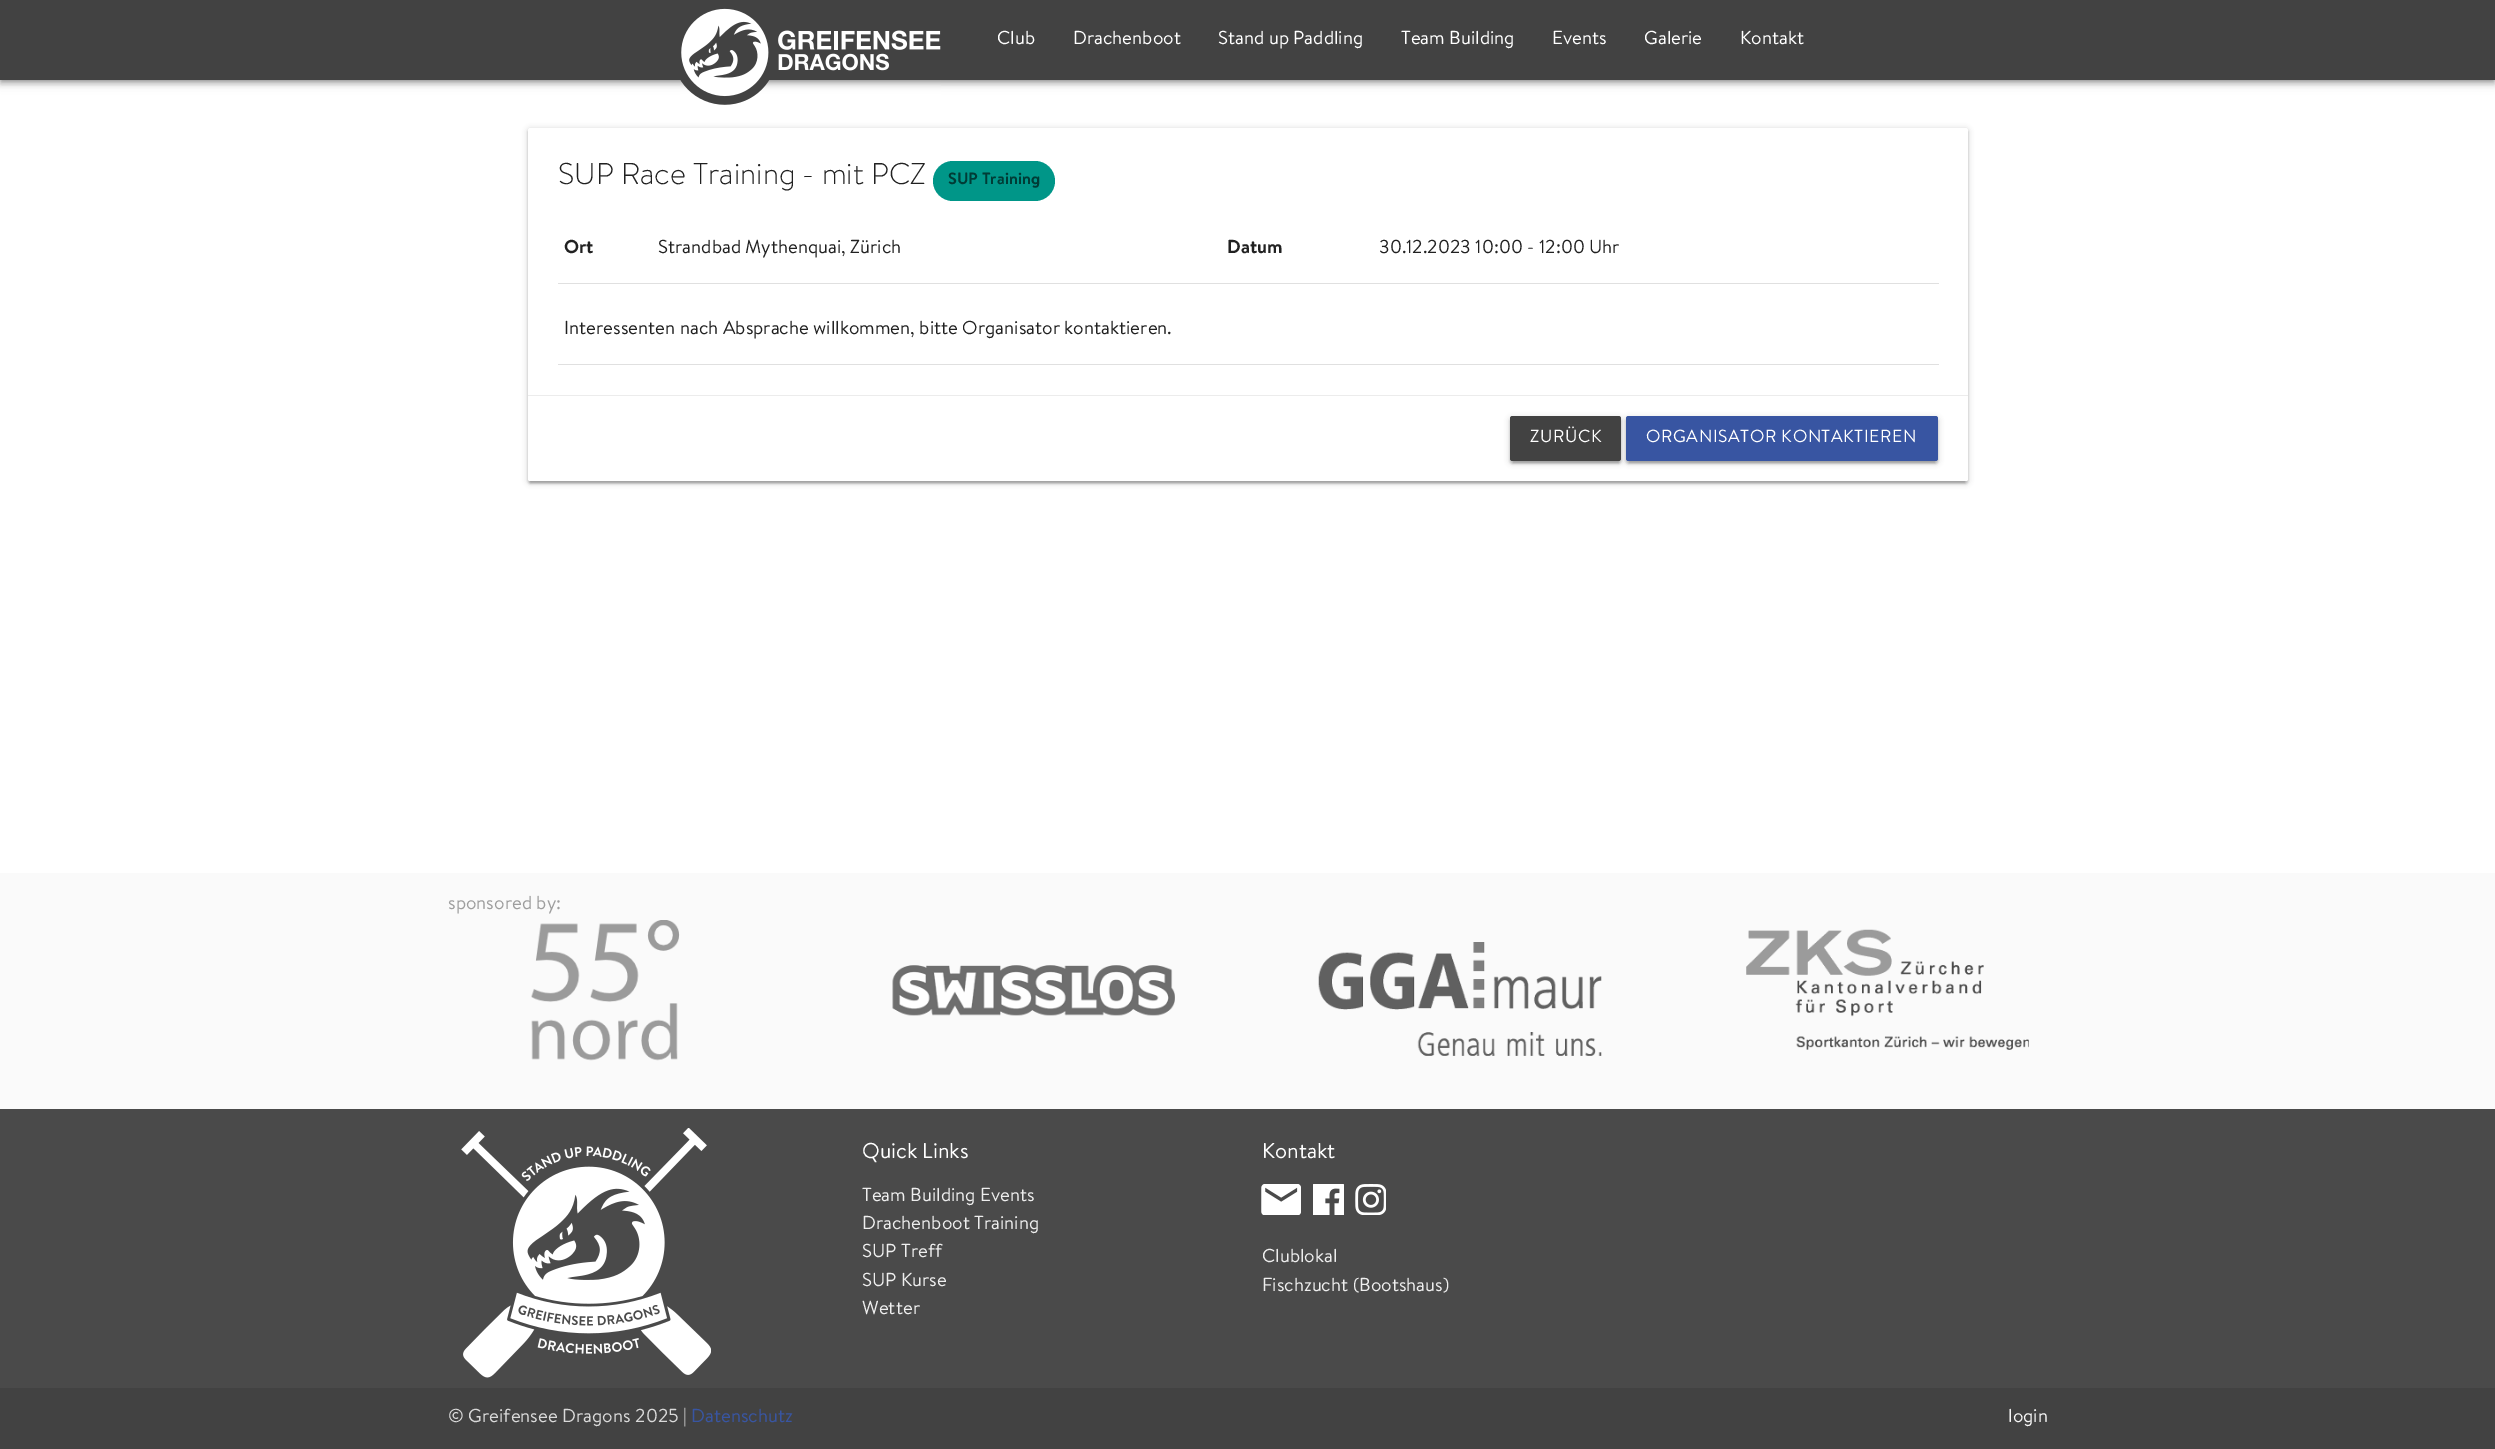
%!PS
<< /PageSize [2495 1449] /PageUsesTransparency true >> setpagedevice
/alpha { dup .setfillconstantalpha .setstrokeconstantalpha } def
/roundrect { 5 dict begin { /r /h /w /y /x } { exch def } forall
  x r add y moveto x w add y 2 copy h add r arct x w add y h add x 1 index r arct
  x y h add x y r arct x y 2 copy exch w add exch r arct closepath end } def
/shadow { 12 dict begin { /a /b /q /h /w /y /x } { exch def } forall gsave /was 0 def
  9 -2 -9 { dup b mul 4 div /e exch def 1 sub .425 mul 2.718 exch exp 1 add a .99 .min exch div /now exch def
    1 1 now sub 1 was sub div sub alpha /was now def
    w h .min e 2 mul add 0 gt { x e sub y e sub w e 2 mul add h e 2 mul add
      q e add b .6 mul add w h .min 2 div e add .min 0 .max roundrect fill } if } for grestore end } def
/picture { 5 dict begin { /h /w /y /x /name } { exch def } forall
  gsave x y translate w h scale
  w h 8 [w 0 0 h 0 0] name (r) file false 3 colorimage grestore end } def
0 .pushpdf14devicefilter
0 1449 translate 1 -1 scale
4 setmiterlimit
1 setgray
0 0 2495 1449 rectfill
0 setgray
1 4 2493 77 0 2.5 0.3 shadow
0 1 2495 80 0 6 0.12 shadow
0 5 2495 80 0 3 0.14 shadow
0.259 setgray
0 0 2495 80 rectfill
(img1.rgb) 680 8 261 97 picture
/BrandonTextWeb-Regular [18.75 0 0 -18.75 0 0] selectfont
1 setgray
997 44 moveto (Club) show
1073 44 moveto (Drachenboot) show
1218 44 moveto (Stand up Paddling) show
1401 44 moveto (Team Building) show
1552 44 moveto (Events) show
1644 44 moveto (Galerie) show
1740 44 moveto (Kontakt) show
0 setgray
528 129 1440 354 2.5 3 0.2 shadow
530 134 1435 349 0 0.5 0.12 shadow
528 130 1440 354 2.5 1 0.14 shadow
1 setgray
528 128 1440 353 2.5 roundrect fill
/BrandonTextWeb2-Regular [30 0 0 -30 0 0] selectfont
0.129 setgray
558 184 moveto (SUP Race Training - mit PCZ) show
0 0.588 0.533 setrgbcolor
933 161 122 40 20 roundrect fill
/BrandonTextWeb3-Regular [16.25 0 0 -16.25 0 0] selectfont
0 0.235 0.212 setrgbcolor
948 184 moveto (SUP Training) show
0.878 setgray
558 283 1381 1 rectfill
/BrandonTextWeb3-Regular [18.75 0 0 -18.75 0 0] selectfont
0.129 setgray
564 253 moveto (Ort) show
/BrandonTextWeb-Regular [18.75 0 0 -18.75 0 0] selectfont
658 253 moveto (Strandbad Mythenquai, Zürich) show
/BrandonTextWeb3-Regular [18.75 0 0 -18.75 0 0] selectfont
1227 253 moveto (Datum) show
/BrandonTextWeb-Regular [18.75 0 0 -18.75 0 0] selectfont
1379 253 moveto (30.12.2023 10:00 - 12:00 Uhr) show
0.878 setgray
558 364 1381 1 rectfill
0.129 setgray
564 334 moveto (Interessenten nach Absprache willkommen, bitte Organisator kontaktieren.) show
1 setgray
newpath 528 395 moveto 1968 395 lineto 1968 478.5 lineto 1968 480 1967 481 1965.5 481 curveto 530.5 481 lineto 529 481 528 480 528 478.5 curveto closepath fill
0.925 setgray
528 395 1440 1 rectfill
0 setgray
1510 418 111 45 2.5 3 0.2 shadow
1513 423 106 40 0 0.5 0.12 shadow
1510 419 111 45 2.5 1 0.14 shadow
0.259 setgray
1510 416 111 45 2.5 roundrect fill
/BrandonTextWeb-Regular [17.5 0 0 -17.5 0 0] selectfont
1 setgray
1530 442 moveto 0.6 0 (ZURÜCK) ashow
0 setgray
1626 418 312 45 2.5 3 0.2 shadow
1629 423 306 40 0 0.5 0.12 shadow
1626 419 312 45 2.5 1 0.14 shadow
0.22 0.333 0.635 setrgbcolor
1626 416 312 45 2.5 roundrect fill
1 setgray
1646 442 moveto 0.6 0 (ORGANISATOR KONTAKTIEREN) ashow
0.29 setgray
0 1109 2495 279 rectfill
0.98 setgray
0 873 2495 236 rectfill
/BrandonTextWeb-Regular [18.75 0 0 -18.75 0 0] selectfont
0.62 setgray
448 909 moveto (sponsored by:) show
(img2.rgb) 531 920 149 141 picture
(img3.rgb) 892 965 283 51 picture
(img4.rgb) 1318 942 284 114 picture
(img5.rgb) 1746 929 283 121 picture
(img6.rgb) 461 1128 250 250 picture
/BrandonTextWeb-Regular [21.5 0 0 -21.5 0 0] selectfont
1 setgray
862 1158 moveto (Quick Links) show
/BrandonTextWeb-Regular [18.75 0 0 -18.75 0 0] selectfont
0.933 setgray
862 1201 moveto (Team Building Events) show
862 1229 moveto (Drachenboot Training) show
862 1257 moveto (SUP Treff) show
862 1286 moveto (SUP Kurse) show
862 1314 moveto (Wetter) show
/BrandonTextWeb-Regular [21.5 0 0 -21.5 0 0] selectfont
1 setgray
1262 1158 moveto (Kontakt) show
(img7.rgb) 1261 1184 40 31 picture
(img8.rgb) 1313 1184 31 31 picture
(img9.rgb) 1355 1184 31 31 picture
/BrandonTextWeb-Regular [18.75 0 0 -18.75 0 0] selectfont
0.933 setgray
1262 1262 moveto (Clublokal) show
1262 1291 moveto (Fischzucht \(Bootshaus\)) show
0.259 setgray
0 1388 2495 61 rectfill
0.851 setgray
448 1422 moveto (© Greifensee Dragons 2025 |) show
0.22 0.333 0.635 setrgbcolor
691 1422 moveto (Datenschutz) show
0.961 setgray
2008 1422 moveto (login) show
.poppdf14devicefilter showpage
